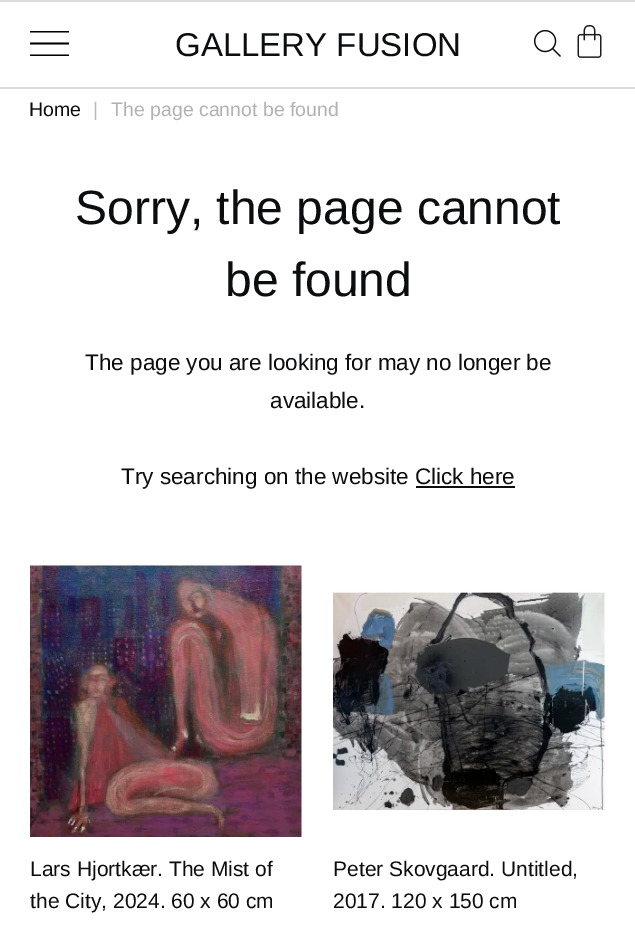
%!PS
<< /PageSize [635 925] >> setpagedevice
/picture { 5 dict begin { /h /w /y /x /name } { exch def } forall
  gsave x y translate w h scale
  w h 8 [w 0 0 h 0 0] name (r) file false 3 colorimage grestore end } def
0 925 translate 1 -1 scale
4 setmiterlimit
1 setgray
0 0 635 925 rectfill
0.859 setgray
0 0 635 2 rectfill
0 87 635 2 rectfill
0 setgray
newpath 30 31 moveto 30 32.5 lineto 69 32.5 lineto 69 31 lineto closepath 30 42.5 moveto 30 44.5 lineto 69 44.5 lineto 69 42.5 lineto closepath 30 54.5 moveto 30 56 lineto 69 56 lineto 69 54.5 lineto closepath fill
/LiberationSans-Regular [33 0 0 -33 0 0] selectfont
0.047 0.051 0.055 setrgbcolor
175 56 moveto (GALLERY FUSION) show
(img1.rgb) 534 30 27 27 picture
(img2.rgb) 577 24 25 34 picture
/LiberationSans-Regular [19.5 0 0 -19.5 0 0] selectfont
29 116 moveto (Home) show
0.729 setgray
93 116 moveto (|) show
0.698 setgray
111 116 moveto (The page cannot be found) show
/LiberationSans-Regular [48 0 0 -48 0 0] selectfont
0.047 0.051 0.055 setrgbcolor
75 224 moveto (Sorry, the page cannot) show
225 296 moveto (be found) show
/LiberationSans-Regular [22.5 0 0 -22.5 0 0] selectfont
85 370 moveto (The page you are looking for may no longer be) show
270 408 moveto (available.) show
121 484 moveto (Try searching on the website Click here) show
416 486 99 2 rectfill
(img3.rgb) 30 565 272 272 picture
/LiberationSans-Regular [21 0 0 -21 0 0] selectfont
30 876 moveto (Lars Hjortkær. The Mist of) show
30 908 moveto (the City, 2024. 60 x 60 cm) show
(img4.rgb) 333 591 272 221 picture
333 876 moveto (Peter Skovgaard. Untitled,) show
333 908 moveto (2017. 120 x 150 cm) show
showpage
